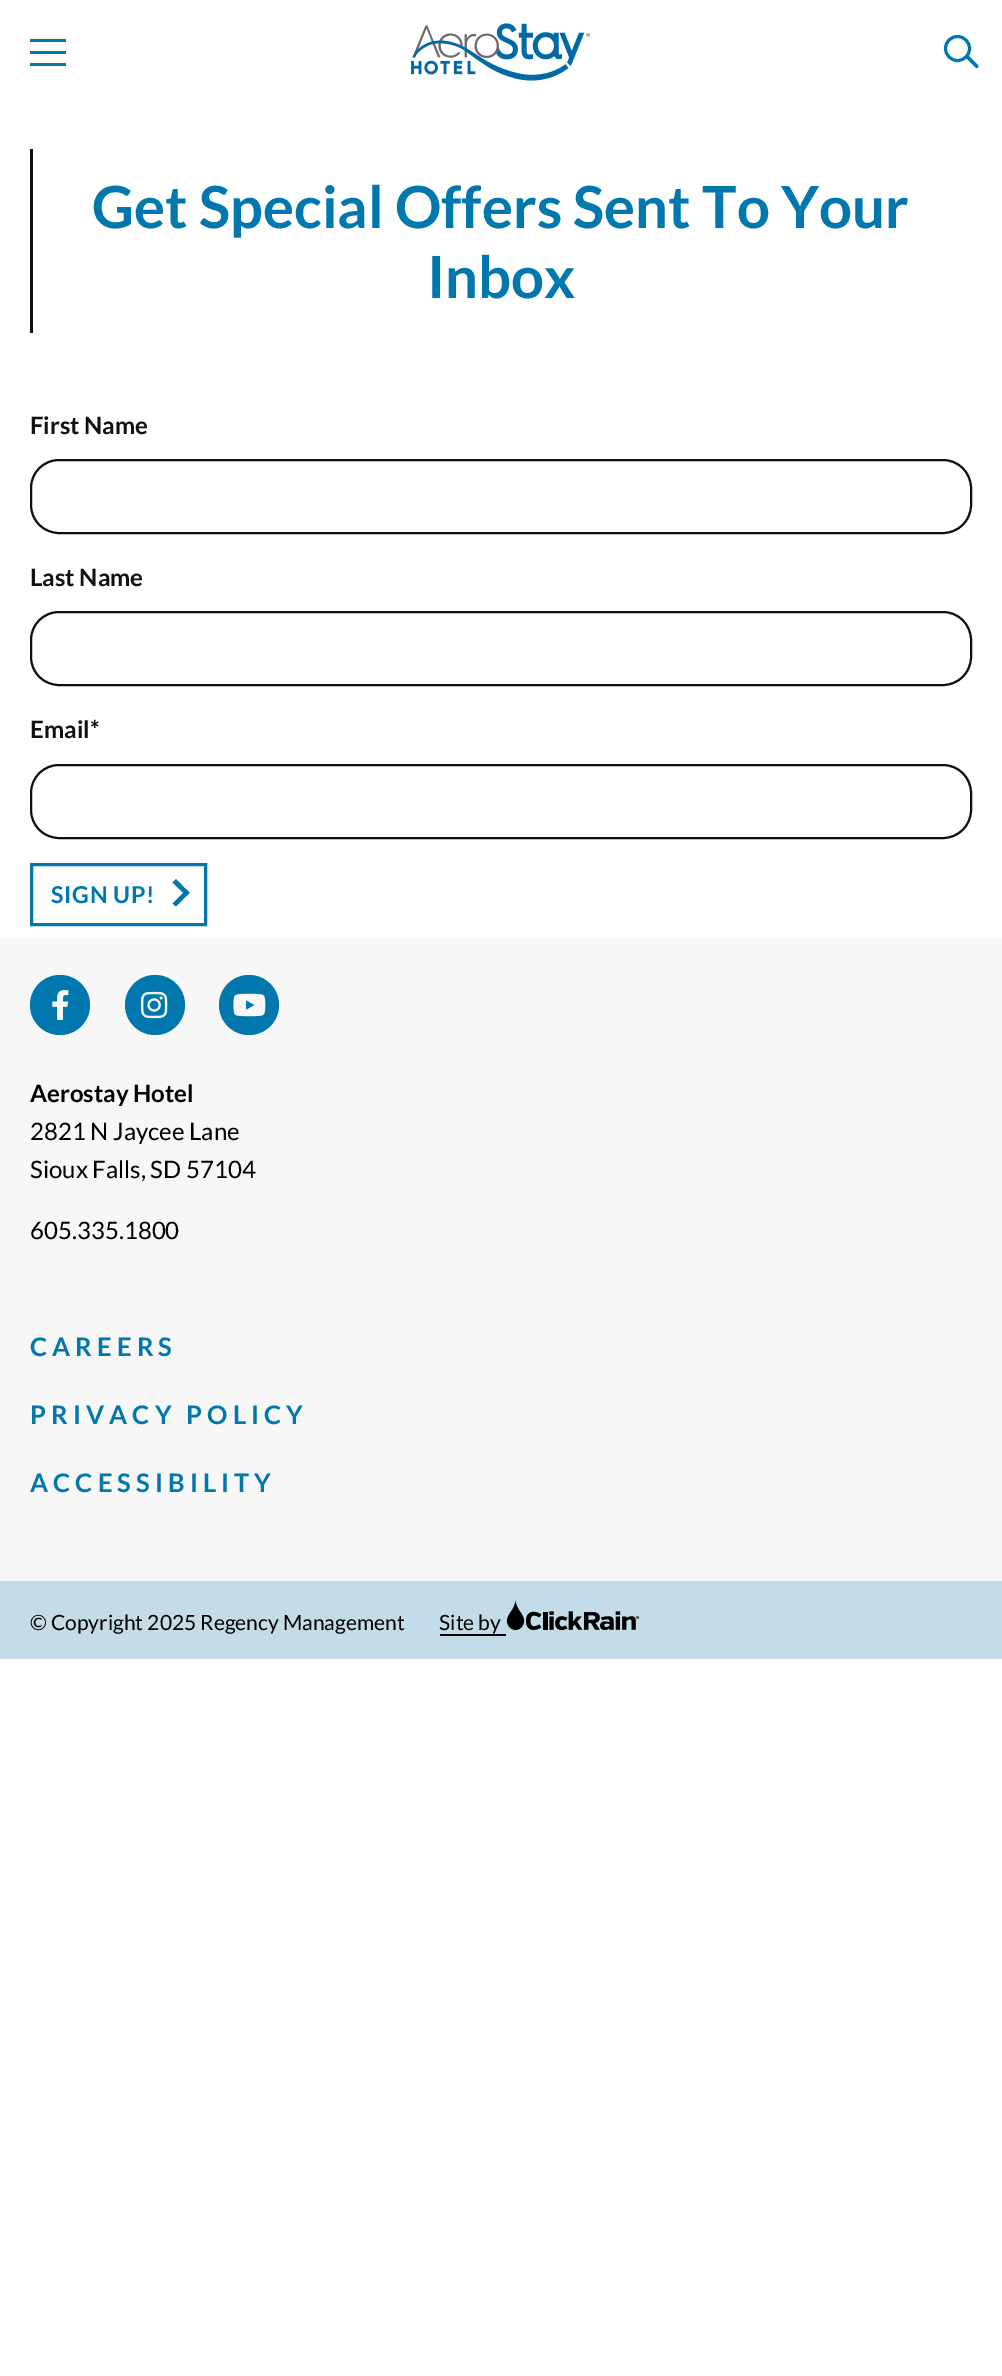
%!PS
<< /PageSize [1002 2376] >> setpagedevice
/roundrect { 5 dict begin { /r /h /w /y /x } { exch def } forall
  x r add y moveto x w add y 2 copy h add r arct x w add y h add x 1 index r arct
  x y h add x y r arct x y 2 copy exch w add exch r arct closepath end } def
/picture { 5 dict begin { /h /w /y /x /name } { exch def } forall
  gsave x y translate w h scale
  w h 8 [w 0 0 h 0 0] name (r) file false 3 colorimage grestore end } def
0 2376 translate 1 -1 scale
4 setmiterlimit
1 setgray
0 0 1002 2376 rectfill
0 0.471 0.682 setrgbcolor
30 39 36 3 rectfill
30 51 36 3 rectfill
30 63 36 3 rectfill
(img1.rgb) 411 23 180 58 picture
3 setlinewidth
newpath 957.5 48.5 12 0 360 arc closepath stroke
newpath 966 55.5 moveto 967 55 967.5 55 968.5 55.5 curveto 978 65 lineto 978.5 66 978.5 66.5 978 67.5 curveto 977 68 976.5 68 975.5 67.5 curveto 966 58 lineto 965.5 57 965.5 56.5 966 55.5 curveto closepath fill
0.063 setgray
30 149 3 184 rectfill
/Lato-Bold [58.1 0 0 -58.1 0 0] selectfont
0 0.471 0.682 setrgbcolor
92 228 moveto (Get Special Offers Sent To Your) show
427 298 moveto (Inbox) show
/Lato-Bold [24 0 0 -24 0 0] selectfont
0.063 setgray
30 434 moveto (First Name) show
2 setlinewidth
31 460 940 73 28 roundrect stroke
30 586 moveto (Last Name) show
31 612 940 73 28 roundrect stroke
30 738 moveto (Email*) show
31 765 940 73 28 roundrect stroke
0 0.471 0.682 setrgbcolor
3 setlinewidth
31.5 864.5 174 60 rectstroke
/Lato-Bold [23.25 0 0 -23.25 0 0] selectfont
51 903 moveto 0.75 0 (SIGN UP!) ashow
newpath 172.5 882.5 moveto 176 879 lineto 189.5 893 lineto 186.5 896 lineto closepath fill
newpath 172.5 903.5 moveto 186.5 889.5 lineto 189.5 893 lineto 176 906.5 lineto closepath fill
0.969 setgray
0 938 1002 643 rectfill
0 0.471 0.682 setrgbcolor
newpath 60 1005 30 0 360 arc closepath fill
(img2.rgb) 52 990 17 30 picture
newpath 155 1005 30 0 360 arc closepath fill
(img3.rgb) 141 991 27 28 picture
newpath 249 1005 30 0 360 arc closepath fill
(img4.rgb) 233 993 33 24 picture
/Lato-Bold [24 0 0 -24 0 0] selectfont
0 setgray
30 1102 moveto (Aerostay Hotel) show
/Lato-Regular [24 0 0 -24 0 0] selectfont
30 1140 moveto (2821 N Jaycee Lane) show
30 1178 moveto (Sioux Falls, SD 57104) show
30 1239 moveto (605.335.1800) show
/Lato-Bold [25.5 0 0 -25.5 0 0] selectfont
0 0.471 0.682 setrgbcolor
30 1356 moveto 5.1 0 (CAREERS) ashow
30 1424 moveto 5.1 0 (PRIVACY POLICY) ashow
30 1492 moveto 5.1 0 (ACCESSIBILITY) ashow
0.765 0.863 0.91 setrgbcolor
0 1581 1002 78 rectfill
/Lato-Regular [21 0 0 -21 0 0] selectfont
0 setgray
30 1630 moveto (© Copyright 2025 Regency Management) show
439 1630 moveto (Site by) show
440 1634 66 2 rectfill
(img5.rgb) 506 1600 134 31 picture
showpage
